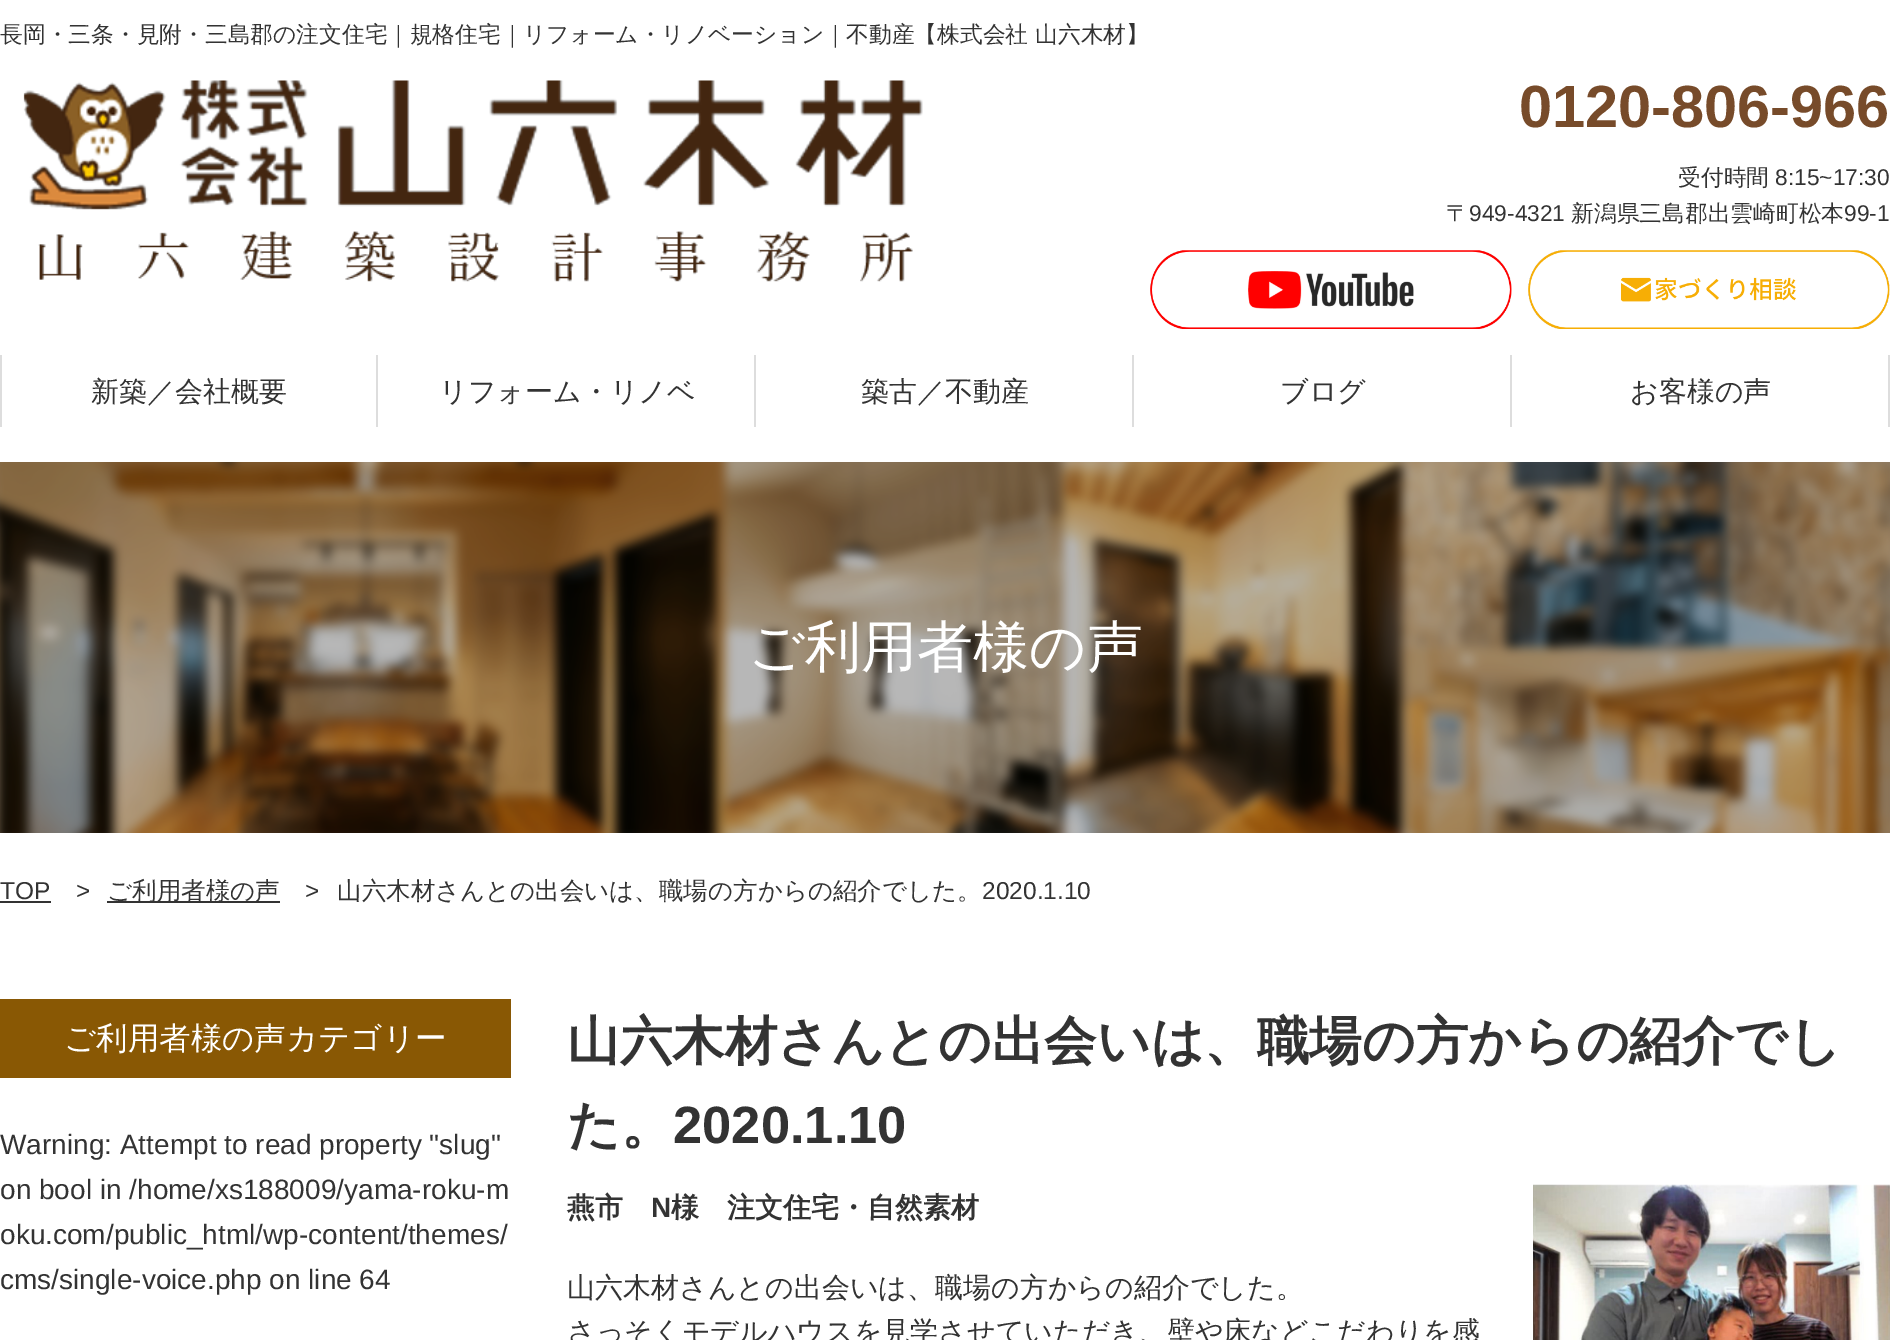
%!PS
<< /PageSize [1890 1340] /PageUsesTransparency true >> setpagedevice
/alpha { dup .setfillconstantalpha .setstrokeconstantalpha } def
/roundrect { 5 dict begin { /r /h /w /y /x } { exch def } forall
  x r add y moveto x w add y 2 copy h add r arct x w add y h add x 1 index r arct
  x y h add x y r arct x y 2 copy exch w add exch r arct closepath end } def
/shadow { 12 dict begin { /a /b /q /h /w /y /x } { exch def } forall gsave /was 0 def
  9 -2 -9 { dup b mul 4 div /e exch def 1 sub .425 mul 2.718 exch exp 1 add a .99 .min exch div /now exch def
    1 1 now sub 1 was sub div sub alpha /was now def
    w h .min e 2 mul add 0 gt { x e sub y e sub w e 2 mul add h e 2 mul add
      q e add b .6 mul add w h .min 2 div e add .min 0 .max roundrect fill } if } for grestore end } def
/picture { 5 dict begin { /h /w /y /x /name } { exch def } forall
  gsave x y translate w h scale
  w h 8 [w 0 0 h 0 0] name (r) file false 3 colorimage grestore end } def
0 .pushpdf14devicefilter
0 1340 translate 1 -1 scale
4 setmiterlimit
1 setgray
0 0 1890 1340 rectfill
/WenQuanYiZenHei-Medium [22.75 0 0 -22.75 0 0] selectfont
0.2 setgray
0 42 moveto (長岡・三条・見附・三島郡の注文住宅｜規格住宅｜リフォーム・リノベーション｜不動産【株式会社 山六木材】) show
(img1.rgb) 23 80 900 202 picture
/LiberationSans-Bold [59.5 0 0 -59.5 0 0] selectfont
0.467 0.294 0.165 setrgbcolor
1519 127 moveto (0120-806-966) show
/WenQuanYiZenHei-Medium [22.75 0 0 -22.75 0 0] selectfont
0.2 setgray
1678 185 moveto (受付時間) show
/LiberationSans-Regular [22.75 0 0 -22.75 0 0] selectfont
1775 185 moveto (8:15~17:30) show
/WenQuanYiZenHei-Medium [22.75 0 0 -22.75 0 0] selectfont
1446 221 moveto (〒) show
/LiberationSans-Regular [22.75 0 0 -22.75 0 0] selectfont
1469 221 moveto (949-4321) show
/WenQuanYiZenHei-Medium [22.75 0 0 -22.75 0 0] selectfont
1571 221 moveto (新潟県三島郡出雲崎町松本) show
/LiberationSans-Regular [22.75 0 0 -22.75 0 0] selectfont
1844 221 moveto (99-1) show
(img2.rgb) 1150 250 362 79 picture
(img3.rgb) 1528 250 362 79 picture
0.867 setgray
0 355 2 72 rectfill
/WenQuanYiZenHei-Medium [28 0 0 -28 0 0] selectfont
0.2 setgray
91 401 moveto (新築／会社概要) show
0.867 setgray
376 355 2 72 rectfill
0.2 setgray
439 401 moveto (リフォーム・リノベ) show
0.867 setgray
754 355 2 72 rectfill
0.2 setgray
861 401 moveto (築古／不動産) show
0.867 setgray
1132 355 2 72 rectfill
0.2 setgray
1280 401 moveto (ブログ) show
0.867 setgray
1510 355 2 72 rectfill
0.2 setgray
1630 401 moveto (お客様の声) show
0.867 setgray
1888 355 2 72 rectfill
(img4.rgb) 0 462 1890 371 picture
gsave
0 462 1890 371 rectclip
0.529 setgray
-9 453 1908 389 0 5 1 shadow
grestore
(img5.rgb) 0 462 1890 371 picture
/WenQuanYiZenHei-Medium [56 0 0 -56 0 0] selectfont
1 setgray
748 666 moveto (ご利用者様の声) show
/LiberationSans-Regular [24.5 0 0 -24.5 0 0] selectfont
0.2 setgray
0 899 moveto (TOP) show
0 901 51 2 rectfill
76 899 moveto (>) show
107 901 173 2 rectfill
/WenQuanYiZenHei-Medium [24.5 0 0 -24.5 0 0] selectfont
107 899 moveto (ご利用者様の声) show
/LiberationSans-Regular [24.5 0 0 -24.5 0 0] selectfont
305 899 moveto (>) show
/WenQuanYiZenHei-Medium [24.5 0 0 -24.5 0 0] selectfont
337 899 moveto (山六木材さんとの出会いは、職場の方からの紹介でした。) show
/LiberationSans-Regular [24.5 0 0 -24.5 0 0] selectfont
982 899 moveto (2020.1.10) show
0.537 0.345 0.016 setrgbcolor
0 999 511 79 rectfill
/WenQuanYiZenHei-Medium [31.5 0 0 -31.5 0 0] selectfont
1 setgray
64 1049 moveto (ご利用者様の声カテゴリー) show
/LiberationSans-Regular [28 0 0 -28 0 0] selectfont
0.2 setgray
0 1154 moveto (Warning: Attempt to read property "slug") show
0 1199 moveto (on bool in /home/xs188009/yama-roku-m) show
0 1244 moveto (oku.com/public_html/wp-content/themes/) show
0 1289 moveto (cms/single-voice.php on line 64) show
/WenQuanYiZenHei-Bold [52.5 0 0 -52.5 0 0] selectfont
567 1059 moveto (山六木材さんとの出会いは、職場の方からの紹介でし) show
567 1143 moveto (た。) show
/LiberationSans-Bold [52.5 0 0 -52.5 0 0] selectfont
673 1143 moveto (2020.1.10) show
/WenQuanYiZenHei-Bold [28 0 0 -28 0 0] selectfont
567 1217 moveto (燕市) show
/LiberationSans-Bold [28 0 0 -28 0 0] selectfont
651 1217 moveto (N) show
/WenQuanYiZenHei-Bold [28 0 0 -28 0 0] selectfont
671 1217 moveto (様　注文住宅・自然素材) show
/WenQuanYiZenHei-Medium [28 0 0 -28 0 0] selectfont
567 1297 moveto (山六木材さんとの出会いは、職場の方からの紹介でした。) show
567 1341 moveto (さっそくモデルハウスを見学させていただき、壁や床などこだわりを感) show
(img6.rgb) 1533 1184 357 156 picture
.poppdf14devicefilter showpage
